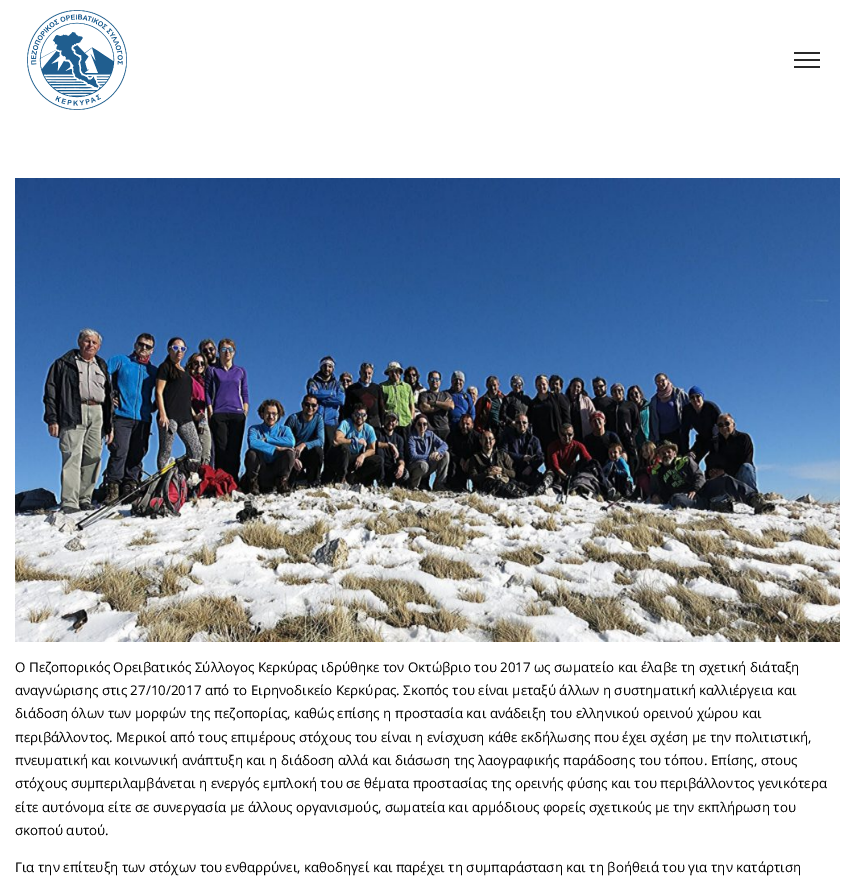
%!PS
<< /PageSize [855 890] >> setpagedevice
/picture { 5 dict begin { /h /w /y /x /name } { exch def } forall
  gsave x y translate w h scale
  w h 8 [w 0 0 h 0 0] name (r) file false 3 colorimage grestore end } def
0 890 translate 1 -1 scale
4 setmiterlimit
1 setgray
0 0 855 890 rectfill
(img1.rgb) 27 10 100 100 picture
0.161 setgray
794 52 26 2 rectfill
794 66 26 2 rectfill
794 59 26 2 rectfill
(img2.rgb) 15 178 825 464 picture
/OpenSans-Regular [13.33 0 0 -13.33 0 0] selectfont
0 setgray
15 672 moveto (Ο Πεζοπορικός Ορειβατικός Σύλλογος Κερκύρας ιδρύθηκε τον Οκτώβριο του 2017 ως σωματείο και έλαβε τη σχετική διάταξη) show
15 695 moveto (αναγνώρισης στις 27/10/2017 από το Ειρηνοδικείο Κερκύρας. Σκοπός του είναι μεταξύ άλλων η συστηματική καλλιέργεια και) show
15 718 moveto (διάδοση όλων των μορφών της πεζοπορίας, καθώς επίσης η προστασία και ανάδειξη του ελληνικού ορεινού χώρου και) show
15 742 moveto (περιβάλλοντος. Μερικοί από τους επιμέρους στόχους του είναι η ενίσχυση κάθε εκδήλωσης που έχει σχέση με την πολιτιστική,) show
15 765 moveto (πνευματική και κοινωνική ανάπτυξη και η διάδοση αλλά και διάσωση της λαογραφικής παράδοσης του τόπου. Επίσης, στους) show
15 788 moveto (στόχους συμπεριλαμβάνεται η ενεργός εμπλοκή του σε θέματα προστασίας της ορεινής φύσης και του περιβάλλοντος γενικότερα) show
15 812 moveto (είτε αυτόνομα είτε σε συνεργασία με άλλους οργανισμούς, σωματεία και αρμόδιους φορείς σχετικούς με την εκπλήρωση του) show
15 835 moveto (σκοπού αυτού.) show
15 872 moveto (Για την επίτευξη των στόχων του ενθαρρύνει, καθοδηγεί και παρέχει τη συμπαράσταση και τη βοήθειά του για την κατάρτιση) show
showpage
